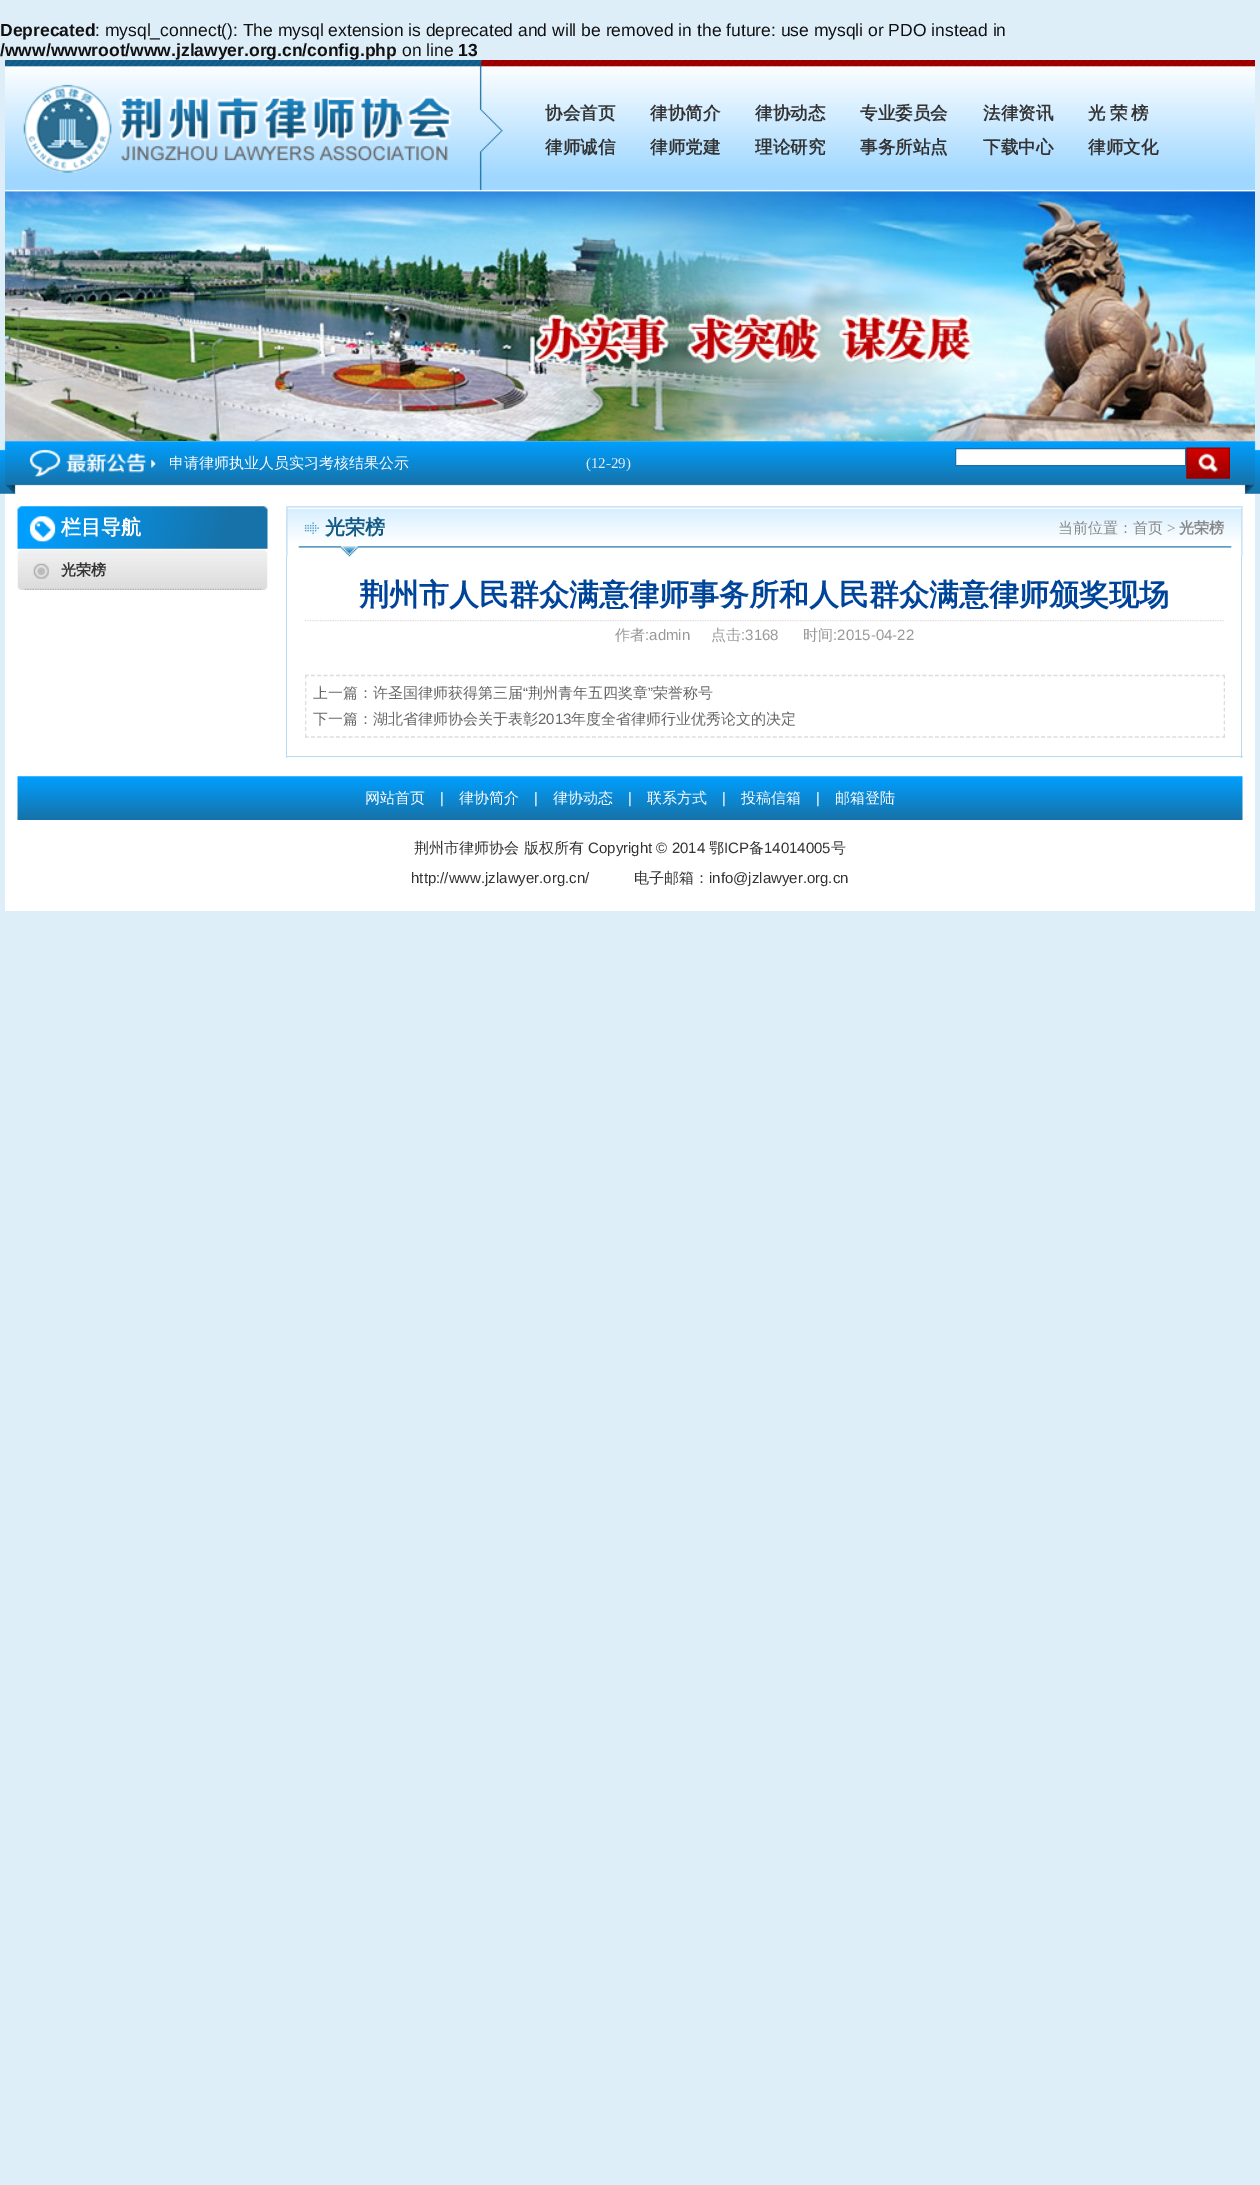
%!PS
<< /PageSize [1260 2185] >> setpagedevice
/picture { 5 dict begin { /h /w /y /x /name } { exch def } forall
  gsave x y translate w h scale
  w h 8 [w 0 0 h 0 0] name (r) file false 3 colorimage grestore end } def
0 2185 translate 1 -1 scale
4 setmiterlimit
0.867 0.933 0.976 setrgbcolor
0 0 1260 2185 rectfill
/LiberationSans-Bold [17.5 0 0 -17.5 0 0] selectfont
0.067 setgray
0 36 moveto (Deprecated) show
/LiberationSans-Regular [17.5 0 0 -17.5 0 0] selectfont
95 36 moveto (: mysql_connect\(\): The mysql extension is deprecated and will be removed in the future: use mysqli or PDO instead in) show
/LiberationSans-Bold [17.5 0 0 -17.5 0 0] selectfont
0 56 moveto (/www/wwwroot/www.jzlawyer.org.cn/config.php) show
/LiberationSans-Regular [17.5 0 0 -17.5 0 0] selectfont
402 56 moveto (on line) show
/LiberationSans-Bold [17.5 0 0 -17.5 0 0] selectfont
458 56 moveto (13) show
(img1.rgb) 5 60 1250 132 picture
/WenQuanYiZenHei-Bold [17.5 0 0 -17.5 0 0] selectfont
0.2 setgray
545 119 moveto (协会首页) show
650 119 moveto (律协简介) show
755 119 moveto (律协动态) show
860 119 moveto (专业委员会) show
983 119 moveto (法律资讯) show
1088 119 moveto -1 0 32 (光 荣 榜) widthshow
545 153 moveto (律师诚信) show
650 153 moveto (律师党建) show
755 153 moveto (理论研究) show
860 153 moveto (事务所站点) show
983 153 moveto (下载中心) show
1088 153 moveto (律师文化) show
(img2.rgb) 5 191 1250 251 picture
(img3.rgb) 0 441 1260 53 picture
/WenQuanYiZenHei-Medium [15 0 0 -15 0 0] selectfont
1 setgray
169 468 moveto (申请律师执业人员实习考核结果公示) show
/LiberationSerif-Regular [15 0 0 -15 0 0] selectfont
0.867 0.933 0.976 setrgbcolor
586 468 moveto (\(12-29\)) show
1 setgray
newpath 955.5 448.5 moveto 1185.5 448.5 lineto 1185.5 465.5 lineto 955.5 465.5 lineto closepath gsave fill grestore
0.09 0.447 0.663 setrgbcolor
stroke
(img4.rgb) 1186 447 44 32 picture
1 setgray
5 494 1250 417 rectfill
(img5.rgb) 17 506 251 43 picture
/WenQuanYiZenHei-Bold [20 0 0 -20 0 0] selectfont
61 534 moveto (栏目导航) show
(img6.rgb) 17 550 251 40 picture
/WenQuanYiZenHei-Bold [15 0 0 -15 0 0] selectfont
0.2 setgray
61 575 moveto (光荣榜) show
0.725 0.859 0.949 setrgbcolor
1241 556 1 202 rectfill
286 756 957 1 rectfill
286 556 1 202 rectfill
(img7.rgb) 286 506 957 51 picture
/WenQuanYiZenHei-Bold [20 0 0 -20 0 0] selectfont
0.075 0.353 0.522 setrgbcolor
325 534 moveto (光荣榜) show
/WenQuanYiZenHei-Medium [15 0 0 -15 0 0] selectfont
0.533 setgray
1058 533 moveto (当前位置：首页) show
/LiberationSerif-Regular [15 0 0 -15 0 0] selectfont
1167 533 moveto (>) show
/WenQuanYiZenHei-Bold [15 0 0 -15 0 0] selectfont
1179 533 moveto (光荣榜) show
(img8.rgb) 305 620 919 2 picture
/WenQuanYiZenHei-Bold [30 0 0 -30 0 0] selectfont
0 0.267 0.6 setrgbcolor
359 605 moveto (荆州市人民群众满意律师事务所和人民群众满意律师颁奖现场) show
/WenQuanYiZenHei-Medium [15 0 0 -15 0 0] selectfont
0.6 setgray
615 640 moveto (作者) show
/LiberationSans-Regular [15 0 0 -15 0 0] selectfont
645 640 moveto (:admin) show
/WenQuanYiZenHei-Medium [15 0 0 -15 0 0] selectfont
711 640 moveto (点击) show
/LiberationSans-Regular [15 0 0 -15 0 0] selectfont
741 640 moveto (:3168) show
/WenQuanYiZenHei-Medium [15 0 0 -15 0 0] selectfont
803 640 moveto (时间) show
/LiberationSans-Regular [15 0 0 -15 0 0] selectfont
833 640 moveto (:2015-04-22) show
0.867 setgray
1.2 setlinewidth
[3.75 2.49] 0 setdash
newpath 305 675.5 moveto 1225 675.5 lineto stroke
gsave
305 556 920 200 rectclip
[3.75 2.78] 0 setdash
newpath 1224.5 675 moveto 1224.5 737.5 lineto stroke
grestore
newpath 305 737 moveto 1225 737 lineto stroke
gsave
305 556 920 200 rectclip
[3.75 2.78] 0 setdash
newpath 305.5 675 moveto 305.5 737.5 lineto stroke
grestore
/WenQuanYiZenHei-Medium [15 0 0 -15 0 0] selectfont
0.4 setgray
313 698 moveto (上一篇：许圣国律师获得第三届) show
/LiberationSans-Regular [15 0 0 -15 0 0] selectfont
523 698 moveto (“) show
/WenQuanYiZenHei-Medium [15 0 0 -15 0 0] selectfont
528 698 moveto (荆州青年五四奖章) show
/LiberationSans-Regular [15 0 0 -15 0 0] selectfont
648 698 moveto (”) show
/WenQuanYiZenHei-Medium [15 0 0 -15 0 0] selectfont
653 698 moveto (荣誉称号) show
313 724 moveto (下一篇：湖北省律师协会关于表彰) show
/LiberationSans-Regular [15 0 0 -15 0 0] selectfont
538 724 moveto (2013) show
/WenQuanYiZenHei-Medium [15 0 0 -15 0 0] selectfont
571 724 moveto (年度全省律师行业优秀论文的决定) show
(img9.rgb) 17 776 1226 44 picture
1 setgray
365 803 moveto (网站首页) show
/LiberationSans-Regular [15 0 0 -15 0 0] selectfont
440 803 moveto (|) show
/WenQuanYiZenHei-Medium [15 0 0 -15 0 0] selectfont
459 803 moveto (律协简介) show
/LiberationSans-Regular [15 0 0 -15 0 0] selectfont
534 803 moveto (|) show
/WenQuanYiZenHei-Medium [15 0 0 -15 0 0] selectfont
553 803 moveto (律协动态) show
/LiberationSans-Regular [15 0 0 -15 0 0] selectfont
628 803 moveto (|) show
/WenQuanYiZenHei-Medium [15 0 0 -15 0 0] selectfont
647 803 moveto (联系方式) show
/LiberationSans-Regular [15 0 0 -15 0 0] selectfont
722 803 moveto (|) show
/WenQuanYiZenHei-Medium [15 0 0 -15 0 0] selectfont
741 803 moveto (投稿信箱) show
/LiberationSans-Regular [15 0 0 -15 0 0] selectfont
816 803 moveto (|) show
/WenQuanYiZenHei-Medium [15 0 0 -15 0 0] selectfont
835 803 moveto (邮箱登陆) show
0.2 setgray
414 853 moveto (荆州市律师协会) show
524 853 moveto (版权所有) show
/LiberationSans-Regular [15 0 0 -15 0 0] selectfont
588 853 moveto (Copyright © 2014) show
/WenQuanYiZenHei-Medium [15 0 0 -15 0 0] selectfont
709 853 moveto (鄂) show
/LiberationSans-Regular [15 0 0 -15 0 0] selectfont
724 853 moveto (ICP) show
/WenQuanYiZenHei-Medium [15 0 0 -15 0 0] selectfont
749 853 moveto (备) show
/LiberationSans-Regular [15 0 0 -15 0 0] selectfont
764 853 moveto (14014005) show
/WenQuanYiZenHei-Medium [15 0 0 -15 0 0] selectfont
831 853 moveto (号) show
/LiberationSans-Regular [15 0 0 -15 0 0] selectfont
411 883 moveto (http://www.jzlawyer.org.cn/) show
/WenQuanYiZenHei-Medium [15 0 0 -15 0 0] selectfont
634 883 moveto (电子邮箱：) show
/LiberationSans-Regular [15 0 0 -15 0 0] selectfont
709 883 moveto (info@jzlawyer.org.cn) show
showpage
